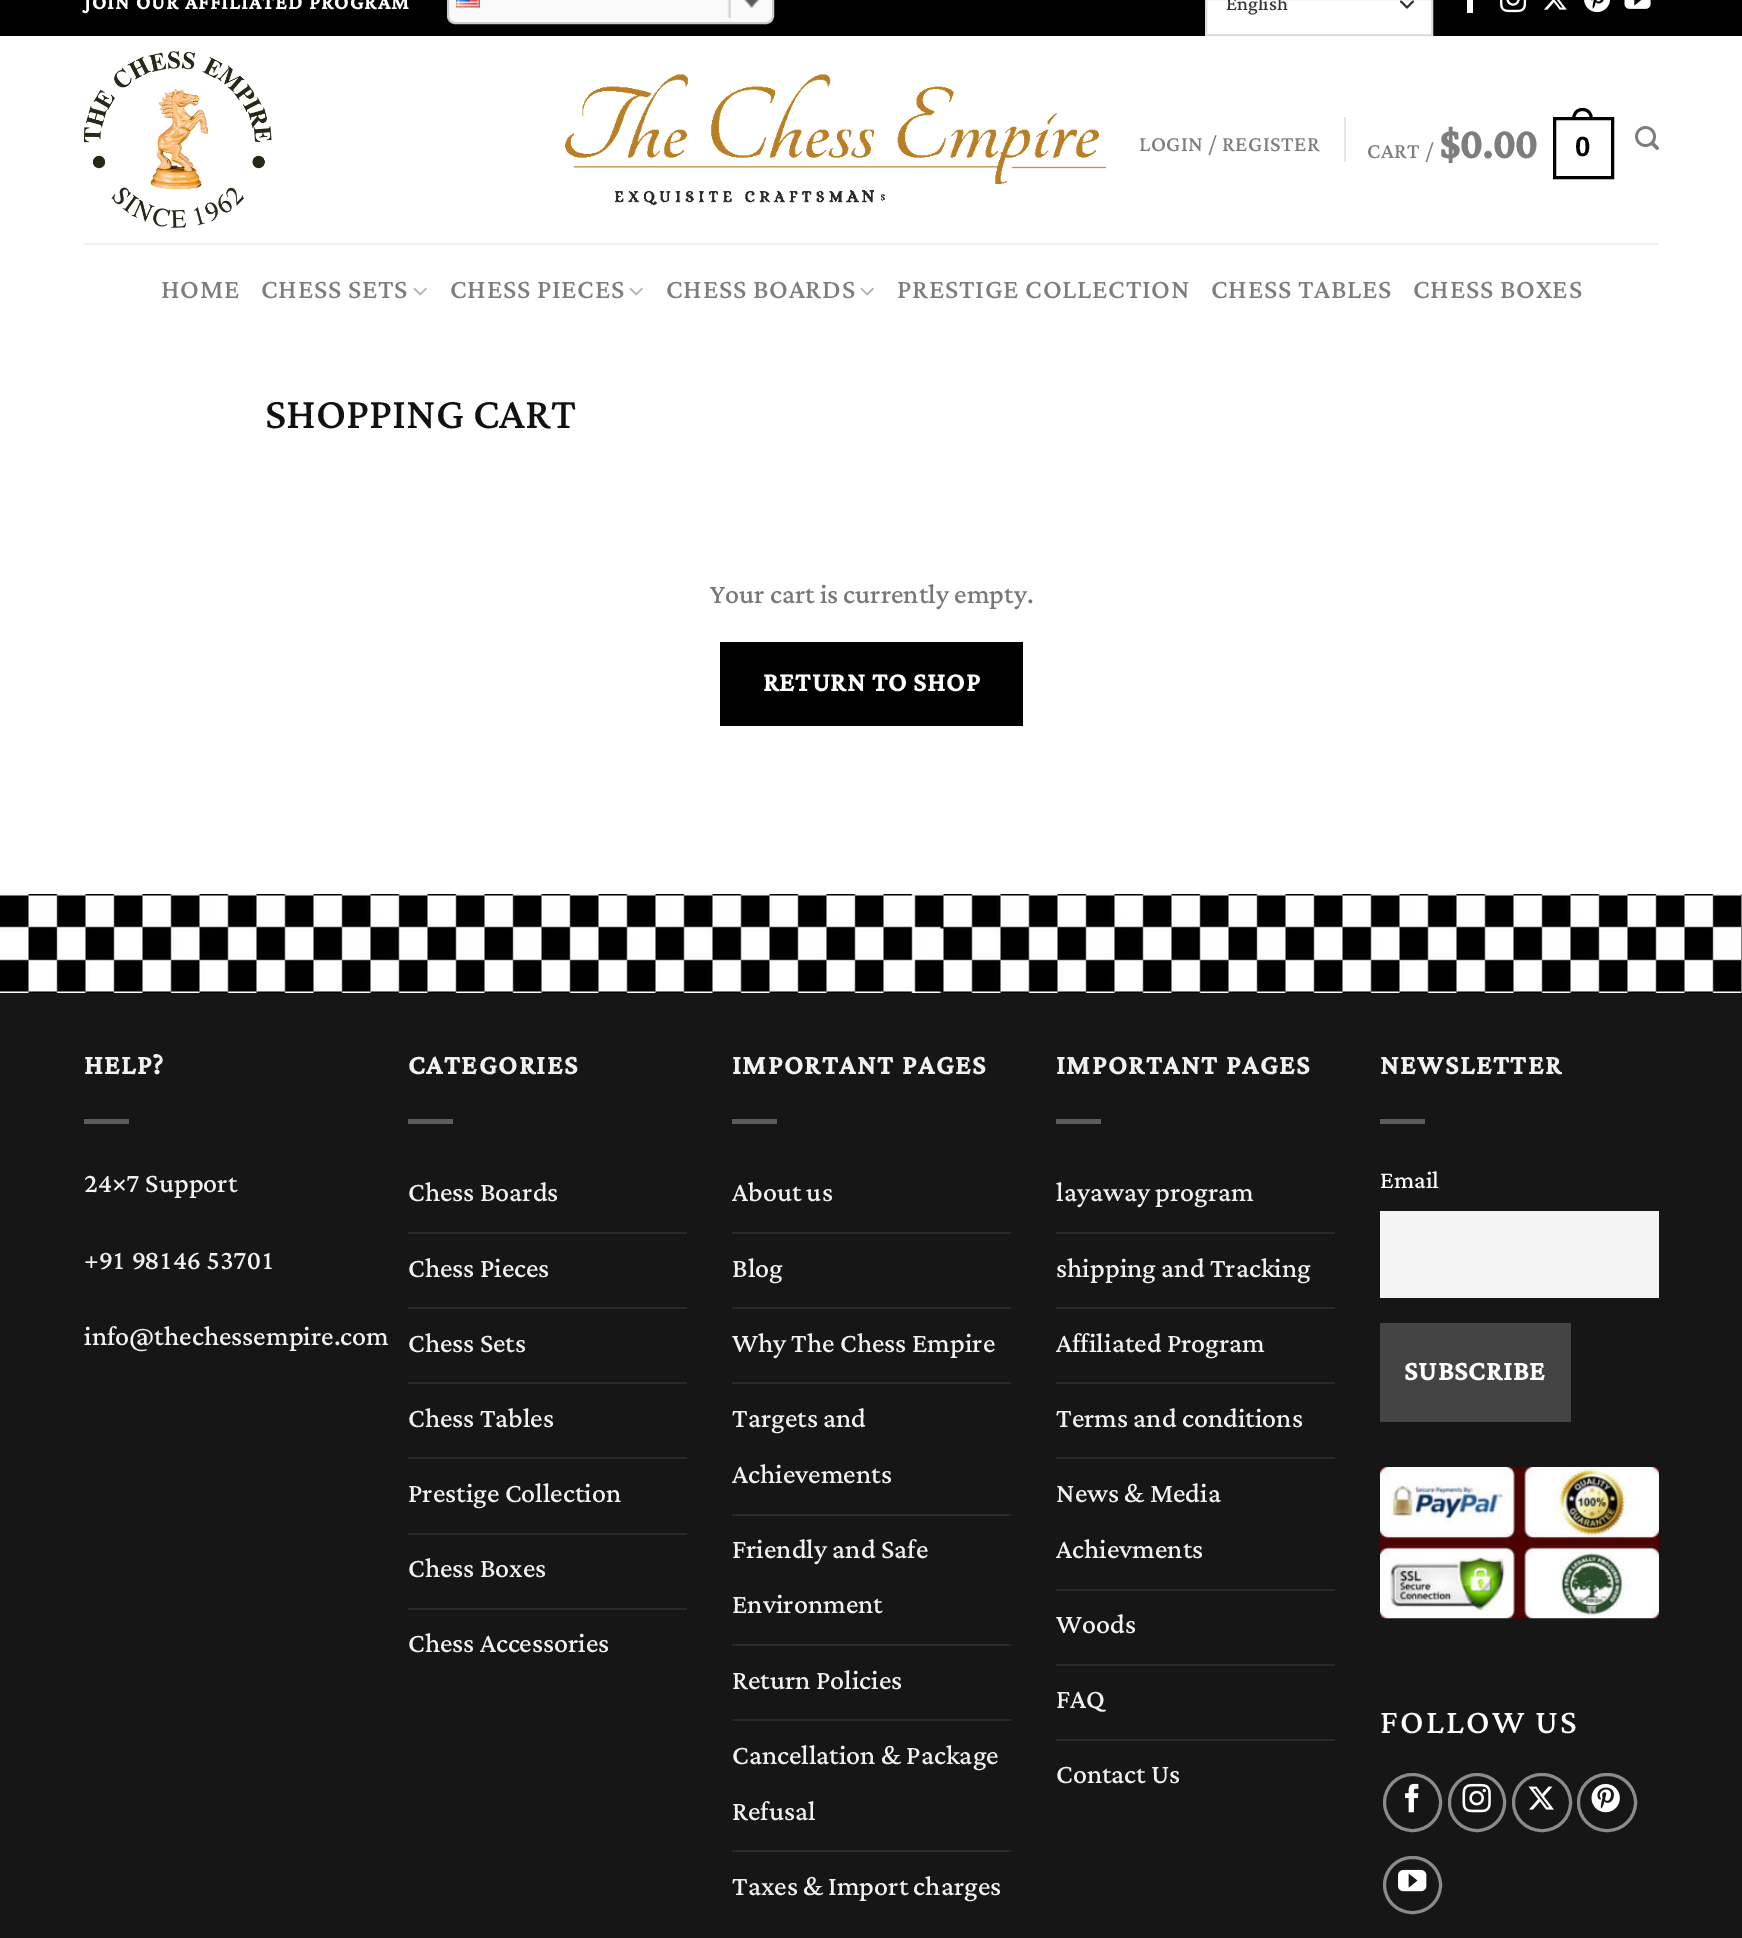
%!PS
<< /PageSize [1742 1938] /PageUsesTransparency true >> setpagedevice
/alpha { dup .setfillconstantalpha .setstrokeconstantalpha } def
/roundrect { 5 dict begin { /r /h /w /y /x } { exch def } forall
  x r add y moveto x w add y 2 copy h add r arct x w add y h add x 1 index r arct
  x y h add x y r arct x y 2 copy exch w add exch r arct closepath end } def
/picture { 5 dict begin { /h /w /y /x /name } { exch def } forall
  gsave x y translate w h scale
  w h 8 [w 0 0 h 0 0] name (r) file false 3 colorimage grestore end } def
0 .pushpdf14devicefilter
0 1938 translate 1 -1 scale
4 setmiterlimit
1 setgray
0 0 1742 1938 rectfill
0 setgray
0 0 1742 36 rectfill
/Lateef-Bold [26.1 0 0 -26.1 0 0] selectfont
1 setgray
84 9 moveto 1.3 0 (JOIN OUR AFFILIATED PROGRAM) ashow
0.98 setgray
448 -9 325 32 7 roundrect gsave fill grestore
0.8 setgray
2 setlinewidth
stroke
(img1.rgb) 456 0 24 8 picture
(img2.rgb) 727 0 33 18 picture
1 setgray
1207 0 224 34 rectfill
0.2 setgray
1 setlinecap
1 setlinejoin
newpath 1401 1.5 moveto 1407 7.5 lineto 1413 1.5 lineto stroke
0.867 setgray
0 setlinecap
0 setlinejoin
1206 -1 226 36 rectstroke
/Lateef-Regular [25 0 0 -25 0 0] selectfont
0.2 setgray
1226 10 moveto (English) show
1 setgray
1467 0 6 13 rectfill
(img3.rgb) 1500 0 27 13 picture
(img4.rgb) 1544 0 23 10 picture
(img5.rgb) 1584 0 26 13 picture
(img6.rgb) 1624 0 27 9 picture
(img7.rgb) 84 51 188 177 picture
(img8.rgb) 565 74 541 132 picture
/Lateef-Regular [27.75 0 0 -27.75 0 0] selectfont
0.49 setgray
1139 151 moveto 0.5 0 (LOGIN / REGISTER) ashow
0.902 setgray
1344 117 2 45 rectfill
0.49 setgray
1367 158 moveto 0.5 0 (CART /) ashow
/Lateef-Bold [54 0 0 -54 0 0] selectfont
1439 158 moveto 0.5 0 ($0.00) ashow
0 setgray
3 setlinewidth
1554.5 118.5 58 59 rectstroke
newpath 1582.5 108 moveto 1589.5 108 1593 113.5 1593 120 curveto 1572 120 lineto 1572 113.5 1575.5 108 1582.5 108 curveto closepath 1582.5 111 moveto 1588 111 1590 115.5 1590 120 curveto 1575 120 lineto 1575 115.5 1577 111 1582.5 111 curveto closepath eofill
/LiberationSans-Bold [27.75 0 0 -27.75 0 0] selectfont
1575 156 moveto 0.5 0 (0) ashow
(img9.rgb) 1635 126 24 24 picture
0.945 setgray
84 243 1575 2 rectfill
/Lateef-Regular [34.75 0 0 -34.75 0 0] selectfont
0.49 setgray
161 298 moveto 0.75 0 (HOME) ashow
261 298 moveto 0.75 0 (CHESS SETS) ashow
(img10.rgb) 413 287 14 9 picture
450 298 moveto 0.75 0 (CHESS PIECES) ashow
(img10.rgb) 629 287 14 9 picture
666 298 moveto 0.75 0 (CHESS BOARDS) ashow
(img10.rgb) 860 287 14 9 picture
897 298 moveto 0.75 0 (PRESTIGE COLLECTION) ashow
1211 298 moveto 0.75 0 (CHESS TABLES) ashow
1413 298 moveto 0.75 0 (CHESS BOXES) ashow
/Lateef-Regular [55.75 0 0 -55.75 0 0] selectfont
0.067 setgray
265 428 moveto (SHOPPING CART) show
/Lateef-Regular [34.75 0 0 -34.75 0 0] selectfont
0.467 setgray
710 603 moveto (Your cart is currently empty.) show
0 setgray
720 642 303 84 rectfill
/Lateef-Bold [33.75 0 0 -33.75 0 0] selectfont
1 setgray
763 691 moveto 1 0 (RETURN TO SHOP) ashow
(img11.rgb) 0 894 1742 99 picture
0.05 alpha
0 setgray
0 894 1742 2 rectfill
1 alpha
0.086 setgray
0 993 1742 945 rectfill
/Lateef-Bold [34.75 0 0 -34.75 0 0] selectfont
0.945 setgray
84 1074 moveto 1.75 0 (HELP?) ashow
0.361 setgray
84 1119 45 5 rectfill
/Lateef-Regular [34.75 0 0 -34.75 0 0] selectfont
0.945 setgray
84 1192 moveto (24×7 Support) show
84 1269 moveto (+91 98146 53701) show
84 1345 moveto (info@thechessempire.com) show
/Lateef-Bold [34.75 0 0 -34.75 0 0] selectfont
408 1074 moveto 1.75 0 (CATEGORIES) ashow
0.361 setgray
408 1119 45 5 rectfill
/Lateef-Regular [34.75 0 0 -34.75 0 0] selectfont
0.945 setgray
408 1201 moveto (Chess Boards) show
0.161 setgray
408 1232 279 2 rectfill
0.945 setgray
408 1277 moveto (Chess Pieces) show
0.161 setgray
408 1307 279 2 rectfill
0.945 setgray
408 1352 moveto (Chess Sets) show
0.161 setgray
408 1382 279 2 rectfill
0.945 setgray
408 1427 moveto (Chess Tables) show
0.161 setgray
408 1457 279 2 rectfill
0.945 setgray
408 1502 moveto (Prestige Collection) show
0.161 setgray
408 1533 279 2 rectfill
0.945 setgray
408 1577 moveto (Chess Boxes) show
0.161 setgray
408 1608 279 2 rectfill
0.945 setgray
408 1652 moveto (Chess Accessories) show
/Lateef-Bold [34.75 0 0 -34.75 0 0] selectfont
732 1074 moveto 1.75 0 (IMPORTANT PAGES) ashow
0.361 setgray
732 1119 45 5 rectfill
/Lateef-Regular [34.75 0 0 -34.75 0 0] selectfont
0.945 setgray
732 1201 moveto (About us) show
0.161 setgray
732 1232 279 2 rectfill
0.945 setgray
732 1277 moveto (Blog) show
0.161 setgray
732 1307 279 2 rectfill
0.945 setgray
732 1352 moveto (Why The Chess Empire) show
0.161 setgray
732 1382 279 2 rectfill
0.945 setgray
732 1427 moveto (Targets and) show
732 1483 moveto (Achievements) show
0.161 setgray
732 1514 279 2 rectfill
0.945 setgray
732 1558 moveto (Friendly and Safe) show
732 1613 moveto (Environment) show
0.161 setgray
732 1644 279 2 rectfill
0.945 setgray
732 1689 moveto (Return Policies) show
0.161 setgray
732 1719 279 2 rectfill
0.945 setgray
732 1764 moveto (Cancellation & Package) show
732 1820 moveto (Refusal) show
0.161 setgray
732 1850 279 2 rectfill
0.945 setgray
732 1895 moveto (Taxes & Import charges) show
/Lateef-Bold [34.75 0 0 -34.75 0 0] selectfont
1056 1074 moveto 1.75 0 (IMPORTANT PAGES) ashow
0.361 setgray
1056 1119 45 5 rectfill
/Lateef-Regular [34.75 0 0 -34.75 0 0] selectfont
0.945 setgray
1056 1201 moveto (layaway program) show
0.161 setgray
1056 1232 279 2 rectfill
0.945 setgray
1056 1277 moveto (shipping and Tracking) show
0.161 setgray
1056 1307 279 2 rectfill
0.945 setgray
1056 1352 moveto (Affiliated Program) show
0.161 setgray
1056 1382 279 2 rectfill
0.945 setgray
1056 1427 moveto (Terms and conditions) show
0.161 setgray
1056 1457 279 2 rectfill
0.945 setgray
1056 1502 moveto (News & Media) show
1056 1558 moveto (Achievments) show
0.161 setgray
1056 1589 279 2 rectfill
0.945 setgray
1056 1633 moveto (Woods) show
0.161 setgray
1056 1664 279 2 rectfill
0.945 setgray
1056 1708 moveto (FAQ) show
0.161 setgray
1056 1739 279 2 rectfill
0.945 setgray
1056 1783 moveto (Contact Us) show
/Lateef-Bold [34.75 0 0 -34.75 0 0] selectfont
1380 1074 moveto 1.75 0 (NEWSLETTER) ashow
0.361 setgray
1380 1119 45 5 rectfill
/Lateef-Regular [31 0 0 -31 0 0] selectfont
1 setgray
1380 1188 moveto (Email) show
0.957 setgray
1380 1211 279 87 rectfill
0.267 setgray
1380 1323 191 99 rectfill
/Lateef-Bold [34.75 0 0 -34.75 0 0] selectfont
1 setgray
1404 1380 moveto 1 0 (SUBSCRIBE) ashow
(img12.rgb) 1380 1467 279 152 picture
/Lateef-Regular [43.5 0 0 -43.5 0 0] selectfont
1380 1733 moveto 2.25 0 (FOLLOW US) ashow
0.545 setgray
newpath 1412.5 1802.5 28 0 360 arc closepath stroke
(img13.rgb) 1405 1783 14 30 picture
1449.5 1774.5 55 56 27.5 roundrect stroke
(img14.rgb) 1462 1783 29 30 picture
1513.5 1774.5 57 56 28 roundrect stroke
(img15.rgb) 1528 1786 26 24 picture
1578.5 1774.5 57 56 28 roundrect stroke
(img16.rgb) 1591 1783 29 30 picture
1384.5 1857.5 56 55 27.5 roundrect stroke
(img17.rgb) 1398 1869 29 23 picture
.poppdf14devicefilter showpage
